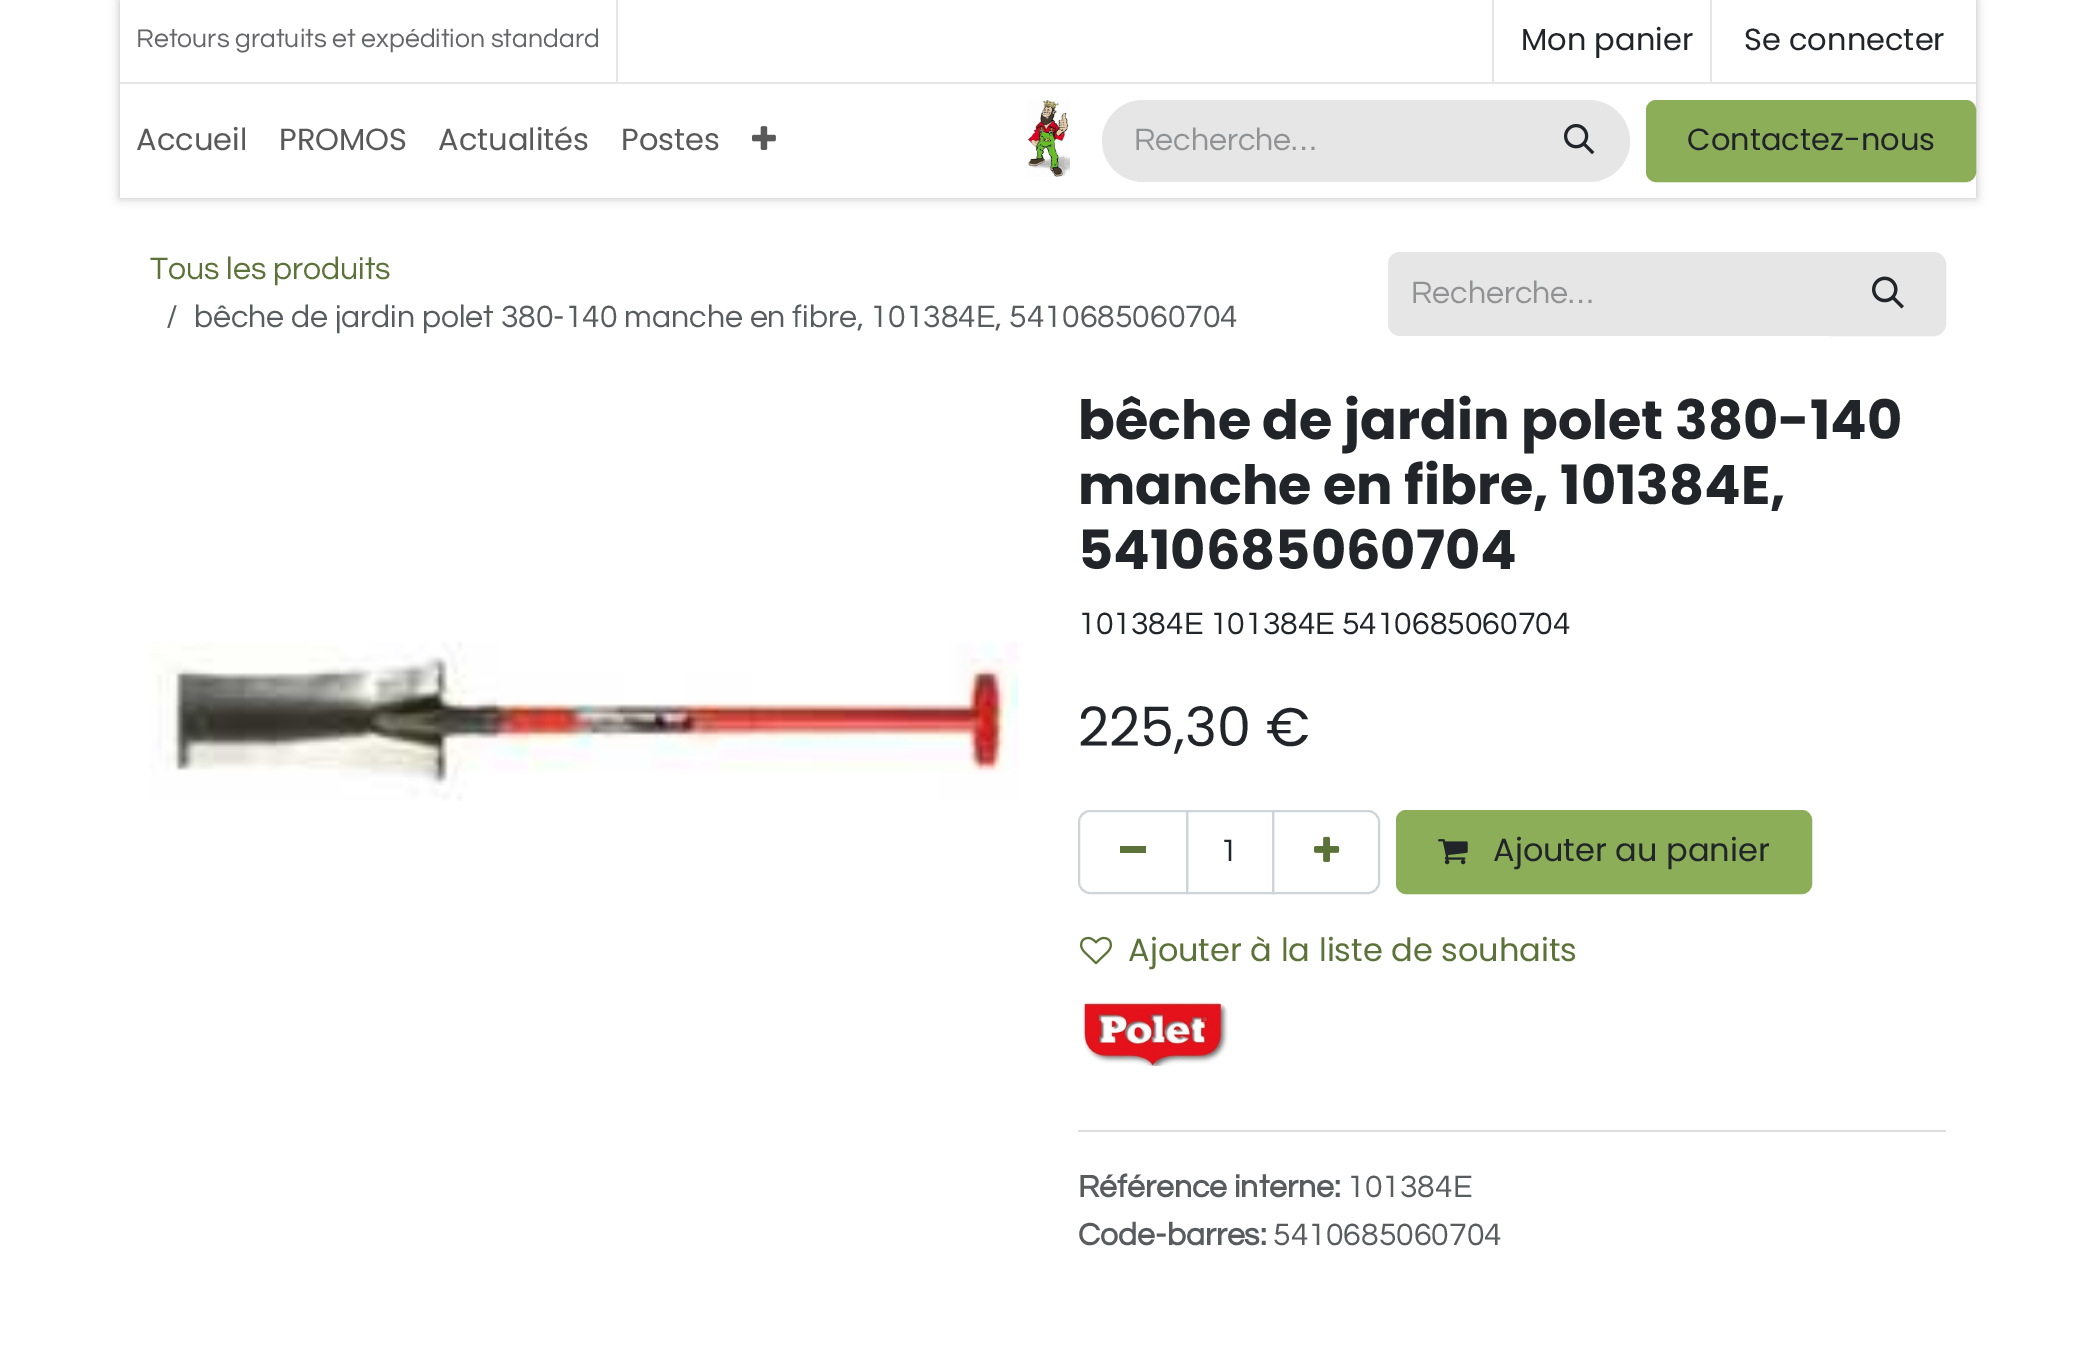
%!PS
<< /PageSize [2096 1362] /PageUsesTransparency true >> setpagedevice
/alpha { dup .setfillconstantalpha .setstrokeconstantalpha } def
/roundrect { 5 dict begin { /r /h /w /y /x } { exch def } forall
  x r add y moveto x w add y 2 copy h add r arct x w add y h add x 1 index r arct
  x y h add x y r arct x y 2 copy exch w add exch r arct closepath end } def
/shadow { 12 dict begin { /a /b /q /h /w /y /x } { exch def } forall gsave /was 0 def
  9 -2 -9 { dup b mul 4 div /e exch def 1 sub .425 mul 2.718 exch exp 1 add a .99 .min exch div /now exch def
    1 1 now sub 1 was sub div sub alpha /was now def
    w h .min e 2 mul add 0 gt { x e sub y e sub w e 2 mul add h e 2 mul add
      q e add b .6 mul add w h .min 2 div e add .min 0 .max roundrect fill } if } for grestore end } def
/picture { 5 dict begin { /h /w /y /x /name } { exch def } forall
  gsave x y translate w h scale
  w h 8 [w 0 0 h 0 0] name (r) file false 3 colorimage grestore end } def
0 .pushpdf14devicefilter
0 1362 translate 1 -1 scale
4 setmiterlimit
1 setgray
0 0 2096 1362 rectfill
gsave
newpath 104 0 moveto 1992 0 lineto 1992 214 lineto 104 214 lineto closepath 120 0 moveto 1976 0 lineto 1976 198 lineto 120 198 lineto closepath eoclip newpath
0 setgray
120 0 1856 198 0 5 0.25 shadow
grestore
0.902 setgray
120 82 1856 2 rectfill
616 0 2 82 rectfill
/Questrial-Regular [26.6 0 0 -26.6 0 0] selectfont
0.392 0.4 0.412 setrgbcolor
136 47 moveto (Retours gratuits et expédition standard) show
0.902 setgray
1492 0 2 82 rectfill
/Poppins-Regular [30.5 0 0 -30.5 0 0] selectfont
0.129 0.145 0.161 setrgbcolor
1521 50 moveto (Mon panier) show
0.902 setgray
1710 0 2 82 rectfill
0.129 0.145 0.161 setrgbcolor
1744 50 moveto (Se connecter) show
0.349 setgray
136 150 moveto (Accueil) show
279 150 moveto (PROMOS) show
438 150 moveto (Actualités) show
621 150 moveto (Postes) show
(img1.rgb) 752 126 24 24 picture
(img2.rgb) 1027 100 43 77 picture
0.902 setgray
newpath 1143 100 moveto 1524 100 lineto 1524 182 lineto 1143 182 lineto 1120.5 182 1102 163.5 1102 141 curveto 1102 118.5 1120.5 100 1143 100 curveto closepath fill
/Questrial-Regular [32 0 0 -32 0 0] selectfont
0.565 0.573 0.58 setrgbcolor
1134 150 moveto (Recherche…) show
0.902 setgray
newpath 1522 100 moveto 1589 100 lineto 1611.5 100 1630 118.5 1630 141 curveto 1630 163.5 1611.5 182 1589 182 curveto 1522 182 lineto closepath fill
(img3.rgb) 1564 123 31 32 picture
0.549 0.682 0.345 setrgbcolor
1647 101 328 80 9 roundrect gsave fill grestore
2 setlinewidth
stroke
/Poppins-Regular [30.5 0 0 -30.5 0 0] selectfont
0.129 0.145 0.161 setrgbcolor
1687 150 moveto (Contactez-nous) show
/Questrial-Regular [32 0 0 -32 0 0] selectfont
0.357 0.451 0.22 setrgbcolor
150 279 moveto (Tous les produits) show
0.349 0.361 0.373 setrgbcolor
166 327 moveto (/) show
194 327 moveto (bêche de jardin polet 380-140 manche en fibre, 101384E, 5410685060704) show
0.902 setgray
newpath 1400 252 moveto 1832 252 lineto 1832 336 lineto 1400 336 lineto 1393.5 336 1388 330.5 1388 324 curveto 1388 264 lineto 1388 257.5 1393.5 252 1400 252 curveto closepath fill
0.565 0.573 0.58 setrgbcolor
1411 303 moveto (Recherche…) show
0.902 setgray
newpath 1831 253 moveto 1934 253 lineto 1940 253 1945 258 1945 264 curveto 1945 324 lineto 1945 330 1940 335 1934 335 curveto 1831 335 lineto closepath gsave fill grestore
stroke
(img4.rgb) 1872 276 32 33 picture
(img5.rgb) 150 641 868 160 picture
/Poppins-Bold [54.2 0 0 -54.2 0 0] selectfont
0.129 0.145 0.161 setrgbcolor
1078 439 moveto (bêche de jardin polet 380-140) show
1078 504 moveto (manche en fibre, 101384E,) show
1078 569 moveto (5410685060704) show
/Questrial-Regular [32 0 0 -32 0 0] selectfont
1078 634 moveto (101384E 101384E 5410685060704) show
/Poppins-Regular [54.2 0 0 -54.2 0 0] selectfont
1078 746 moveto (225,30 €) show
0.808 0.831 0.855 setrgbcolor
1187 811 86 82 rectstroke
newpath 1090 811 moveto 1187 811 lineto 1187 893 lineto 1090 893 lineto 1084 893 1079 888 1079 882 curveto 1079 822 lineto 1079 816 1084 811 1090 811 curveto closepath stroke
0.357 0.451 0.22 setrgbcolor
1120 846 26 7 rectfill
/Questrial-Regular [32 0 0 -32 0 0] selectfont
0.129 0.145 0.161 setrgbcolor
1220 861 moveto (1) show
0.808 0.831 0.855 setrgbcolor
newpath 1273 811 moveto 1368 811 lineto 1374 811 1379 816 1379 822 curveto 1379 882 lineto 1379 888 1374 893 1368 893 curveto 1273 893 lineto closepath stroke
(img6.rgb) 1314 836 26 26 picture
0.549 0.682 0.345 setrgbcolor
1397 811 414 82 9 roundrect gsave fill grestore
stroke
(img7.rgb) 1438 839 30 26 picture
/Poppins-Regular [32 0 0 -32 0 0] selectfont
0.129 0.145 0.161 setrgbcolor
1493 861 moveto (Ajouter au panier) show
(img8.rgb) 1080 936 32 29 picture
0.357 0.451 0.22 setrgbcolor
1128 961 moveto (Ajouter à la liste de souhaits) show
(img9.rgb) 1081 1002 147 64 picture
0.871 0.871 0.875 setrgbcolor
1078 1130 868 2 rectfill
/Questrial-Bold [32 0 0 -32 0 0] selectfont
0.349 0.361 0.373 setrgbcolor
1078 1197 moveto (Référence interne:) show
/Questrial-Regular [32 0 0 -32 0 0] selectfont
1347 1197 moveto (101384E) show
/Questrial-Bold [32 0 0 -32 0 0] selectfont
1078 1245 moveto (Code-barres:) show
/Questrial-Regular [32 0 0 -32 0 0] selectfont
1273 1245 moveto (5410685060704) show
.poppdf14devicefilter showpage
